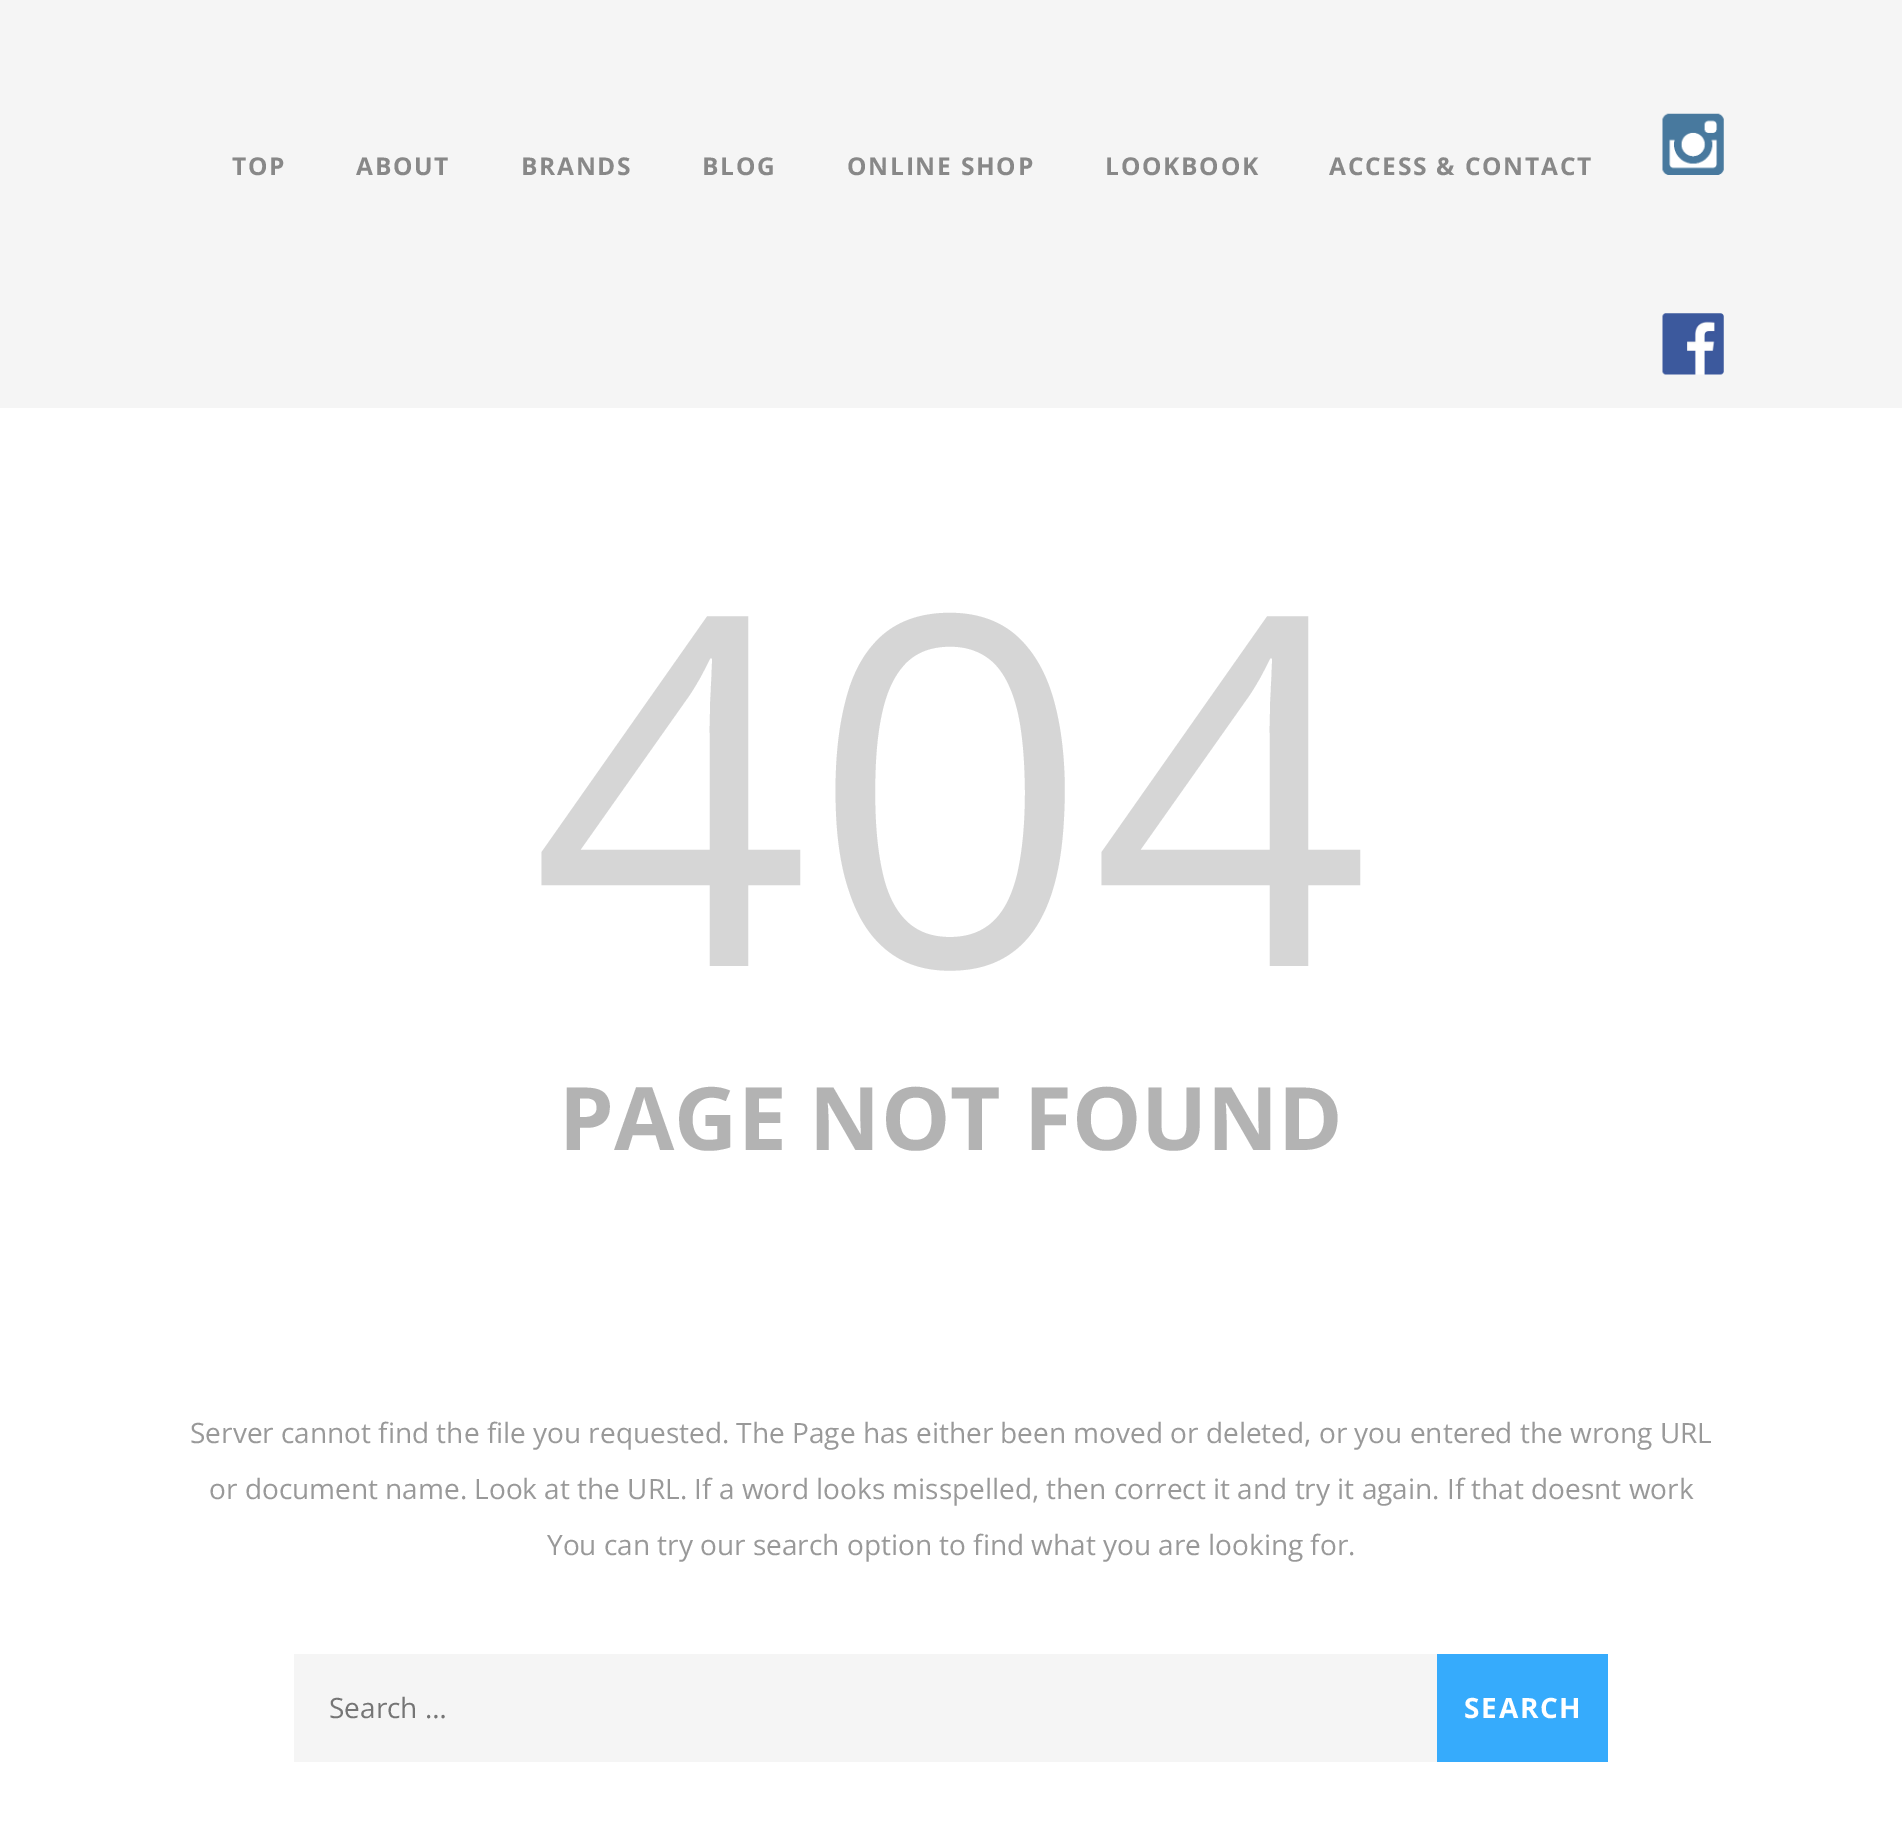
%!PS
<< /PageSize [1902 1843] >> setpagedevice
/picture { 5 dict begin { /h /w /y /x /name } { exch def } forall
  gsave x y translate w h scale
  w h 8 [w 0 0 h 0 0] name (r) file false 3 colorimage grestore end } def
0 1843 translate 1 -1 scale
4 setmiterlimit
1 setgray
0 0 1902 1843 rectfill
0.961 setgray
0 0 1902 408 rectfill
/OpenSans-Bold [24.5 0 0 -24.5 0 0] selectfont
0.533 setgray
232 175 moveto 1.75 0 (TOP) ashow
356 175 moveto 1.75 0 (ABOUT) ashow
521 175 moveto 1.75 0 (BRANDS) ashow
702 175 moveto 1.75 0 (BLOG) ashow
847 175 moveto 1.75 0 (ONLINE SHOP) ashow
1105 175 moveto 1.75 0 (LOOKBOOK) ashow
1329 175 moveto 1.75 0 (ACCESS & CONTACT) ashow
(img1.rgb) 1662 113 62 62 picture
(img2.rgb) 1662 313 62 62 picture
/OpenSans-Regular [490 0 0 -490 0 0] selectfont
0.839 setgray
531 966 moveto (404) show
/OpenSans-Bold [87.5 0 0 -87.5 0 0] selectfont
0.702 setgray
559 1150 moveto (PAGE NOT FOUND) show
/OpenSans-Regular [28 0 0 -28 0 0] selectfont
0.6 setgray
190 1443 moveto (Server cannot find the file you requested. The Page has either been moved or deleted, or you entered the wrong URL) show
209 1499 moveto (or document name. Look at the URL. If a word looks misspelled, then correct it and try it again. If that doesnt work) show
547 1555 moveto (You can try our search option to find what you are looking for.) show
0.961 setgray
294 1654 1143 108 rectfill
0.459 setgray
329 1718 moveto (Search …) show
0.212 0.671 0.988 setrgbcolor
1437 1654 171 108 rectfill
/OpenSans-Bold [28 0 0 -28 0 0] selectfont
1 setgray
1464 1718 moveto 1.75 0 (SEARCH) ashow
showpage
